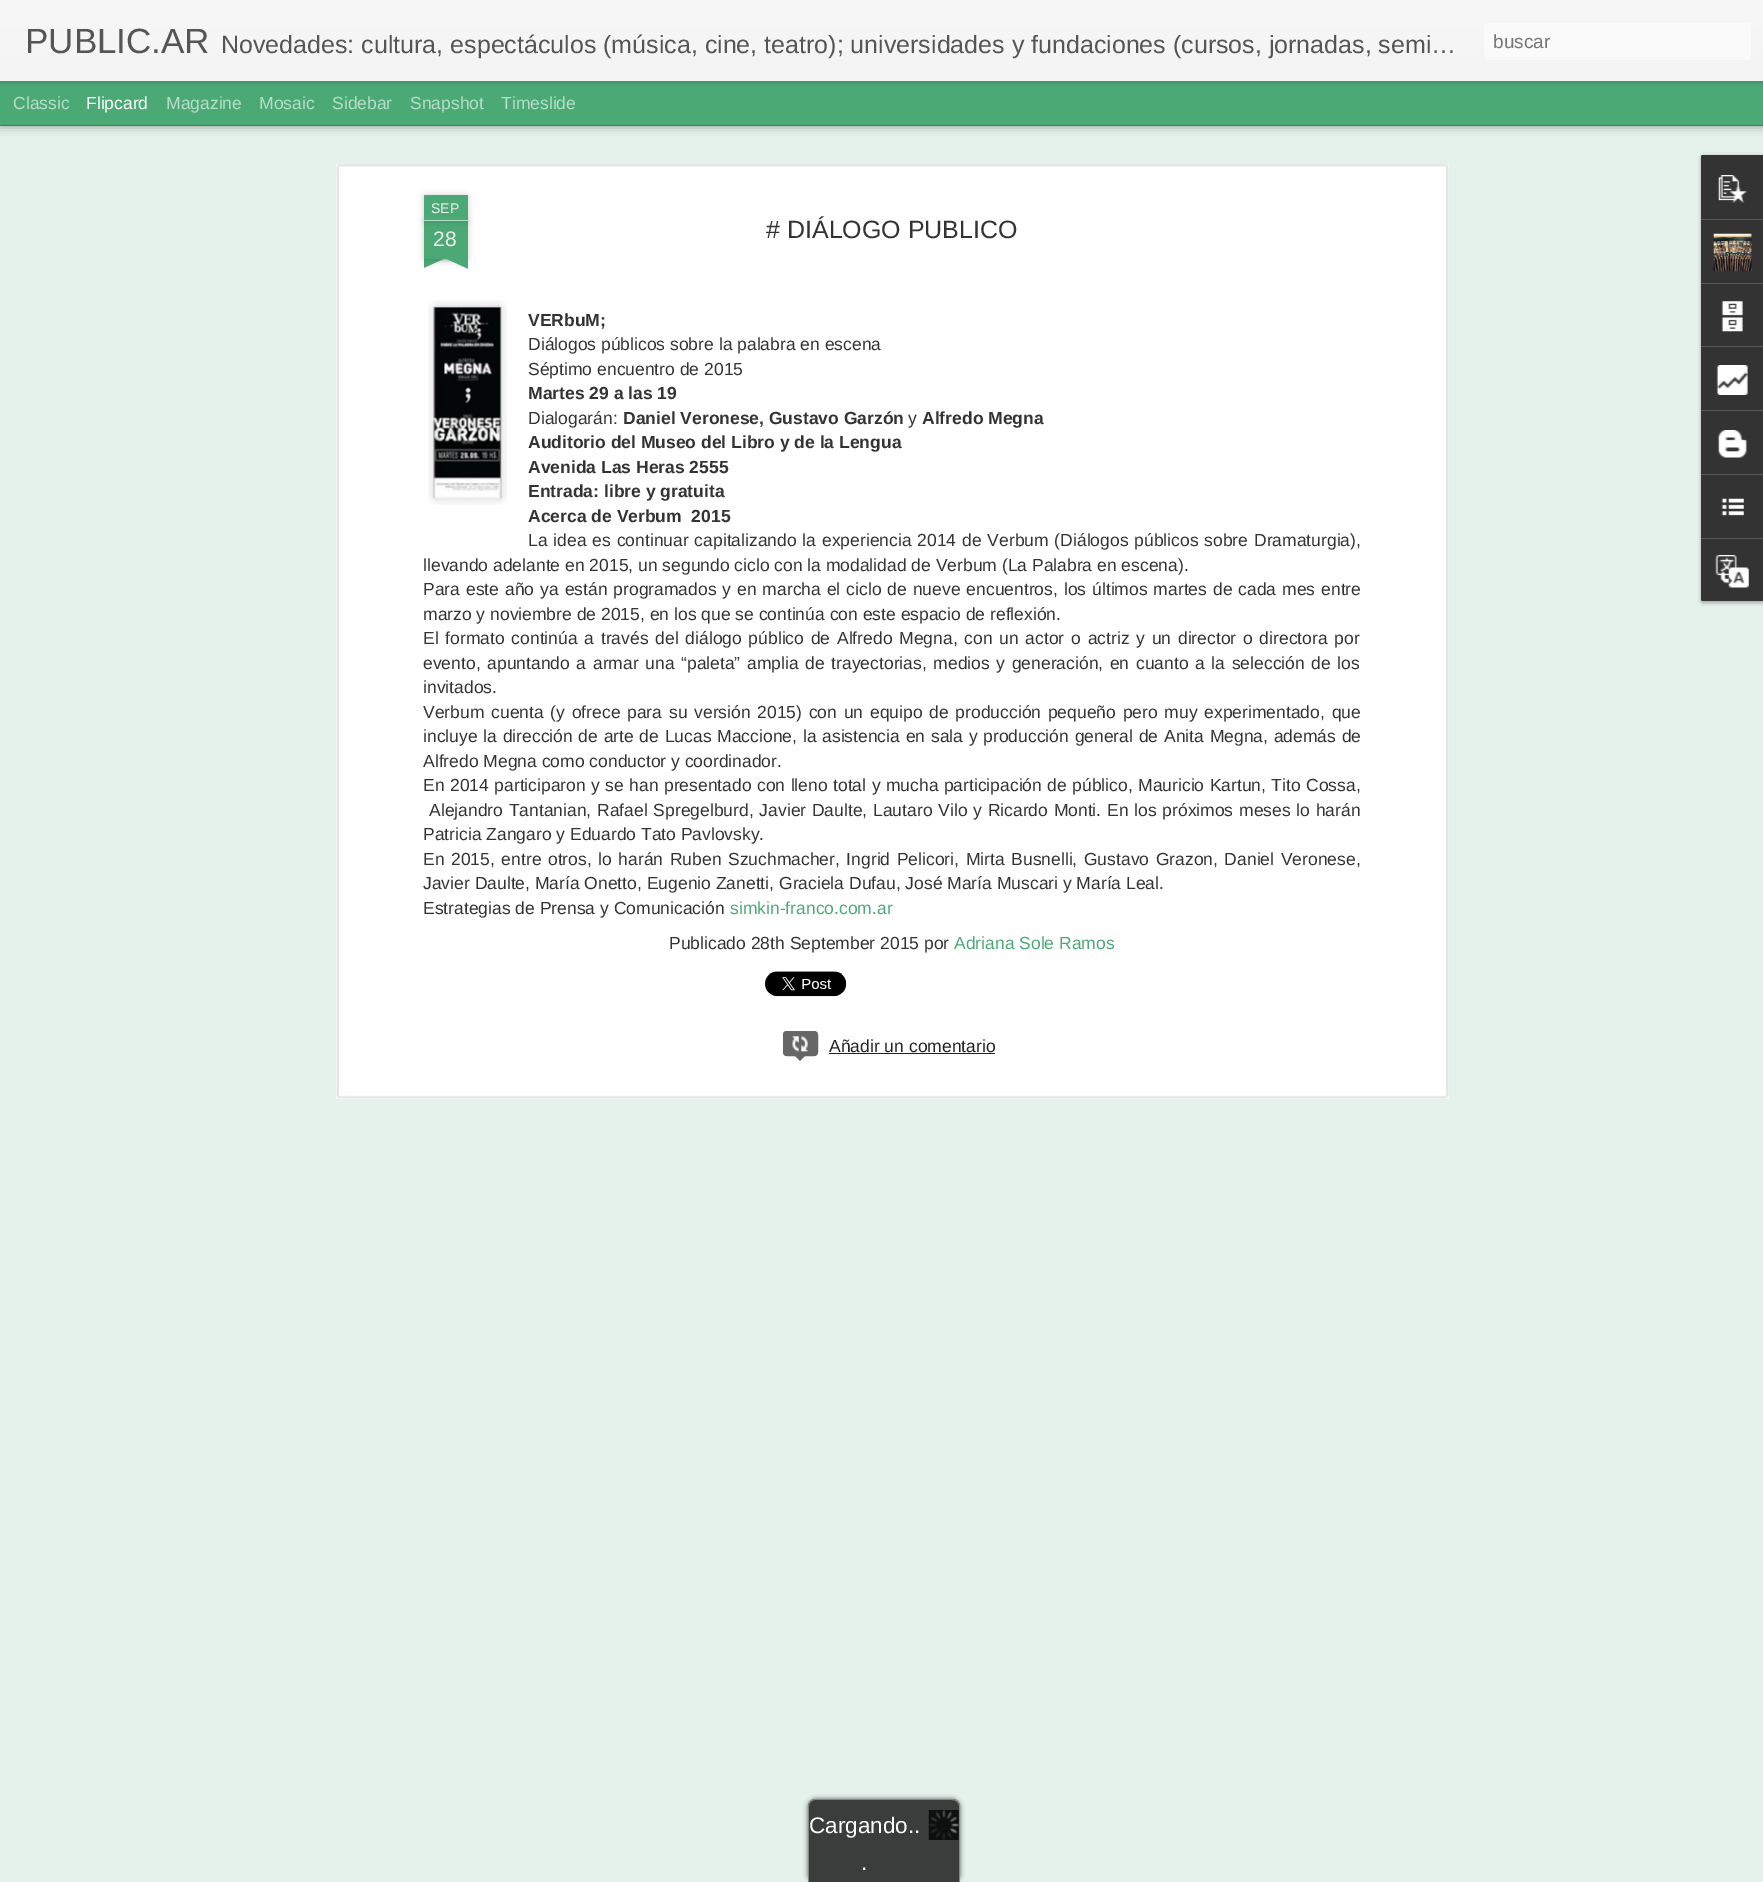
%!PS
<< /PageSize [1763 1882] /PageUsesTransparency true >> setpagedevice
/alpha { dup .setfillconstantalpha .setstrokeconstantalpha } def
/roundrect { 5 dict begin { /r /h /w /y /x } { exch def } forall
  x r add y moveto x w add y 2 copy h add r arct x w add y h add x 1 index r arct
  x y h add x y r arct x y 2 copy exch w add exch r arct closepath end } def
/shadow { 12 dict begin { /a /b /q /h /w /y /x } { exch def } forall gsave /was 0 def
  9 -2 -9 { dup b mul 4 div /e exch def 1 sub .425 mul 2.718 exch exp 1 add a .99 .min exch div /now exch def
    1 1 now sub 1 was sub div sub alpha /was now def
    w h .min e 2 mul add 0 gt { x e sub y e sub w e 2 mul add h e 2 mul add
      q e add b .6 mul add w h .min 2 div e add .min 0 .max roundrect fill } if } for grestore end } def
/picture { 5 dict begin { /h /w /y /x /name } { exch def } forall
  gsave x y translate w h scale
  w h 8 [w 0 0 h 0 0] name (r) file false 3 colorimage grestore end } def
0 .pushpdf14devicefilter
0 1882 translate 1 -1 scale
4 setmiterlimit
0.294 0.663 0.463 setrgbcolor
0 0 1763 1882 rectfill
0.894 0.949 0.922 setrgbcolor
0 126 1763 1756 rectfill
0 setgray
0 81 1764 44 0 5 0.5 shadow
0.294 0.663 0.463 setrgbcolor
0 81 1763 44 rectfill
0 setgray
0 0 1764 81 0 3 0.3 shadow
gsave newpath 0 0 moveto 1763 0 lineto 1763 81 lineto 0 81 lineto closepath clip newpath
<< /ShadingType 2 /ColorSpace /DeviceRGB /Coords [0 0 0 81] /Extend [true true] /Function << /FunctionType 2 /Domain [0 1] /C0 [0.969 0.969 0.969] /C1 [0.957 0.957 0.957] /N 1 >> >> shfill grestore
/LiberationSans-Regular [35 0 0 -35 0 0] selectfont
0.333 setgray
25 53 moveto (PUBLIC.AR) show
/LiberationSans-Regular [25 0 0 -25 0 0] selectfont
221 53 moveto (Novedades: cultura, espectáculos \(música, cine, teatro\); universidades y fundaciones \(cursos, jornadas, semi…) show
0.98 setgray
1484 23 267 37 4 roundrect fill
/LiberationSans-Regular [19 0 0 -19 0 0] selectfont
0.459 setgray
1493 48 moveto (buscar) show
/LiberationSans-Regular [17.5 0 0 -17.5 0 0] selectfont
0.718 0.867 0.784 setrgbcolor
13 109 moveto (Classic) show
1 setgray
86 109 moveto (Flipcard) show
0.718 0.867 0.784 setrgbcolor
166 109 moveto (Magazine) show
259 109 moveto (Mosaic) show
332 109 moveto (Sidebar) show
410 109 moveto (Snapshot) show
501 109 moveto (Timeslide) show
1 setgray
336 164 1113 935 rectfill
(img1.rgb) 336 164 1113 935 picture
0 setgray
424 221 44 38 0 3 0.2 shadow
0.294 0.663 0.463 setrgbcolor
424 221 44 38 rectfill
0 setgray
424 195 44 26 1 3 0.2 shadow
0.294 0.663 0.463 setrgbcolor
newpath 425 195 moveto 467 195 lineto 467.5 195 468 195.5 468 196 curveto 468 221 lineto 424 221 lineto 424 196 lineto 424 195.5 424.5 195 425 195 curveto closepath fill
0.718 0.867 0.784 setrgbcolor
424 220 44 1 rectfill
/LiberationSans-Regular [14 0 0 -14 0 0] selectfont
0.933 setgray
431 213 moveto (SEP) show
/LiberationSans-Regular [21 0 0 -21 0 0] selectfont
433 246 moveto (28) show
gsave
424 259 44 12 rectclip
0 setgray
413 246 62 13 0 3 0.2 shadow
grestore
gsave
424 259 44 12 rectclip
0.294 0.663 0.463 setrgbcolor
newpath 412 260 moveto 469 234 lineto 474 245 lineto 417 271 lineto closepath fill
grestore
gsave
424 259 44 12 rectclip
0 setgray
416 246 63 13 0 3 0.2 shadow
grestore
gsave
424 259 44 12 rectclip
0.294 0.663 0.463 setrgbcolor
newpath 421 234 moveto 478 260 lineto 473 271 lineto 416 245 lineto closepath fill
grestore
/LiberationSans-Regular [25 0 0 -25 0 0] selectfont
0.2 setgray
766 238 moveto (# DIÁLOGO PUBLICO) show
(img2.rgb) 428 300 79 205 picture
(img3.rgb) 433 306 69 193 picture
/LiberationSans-Bold [17.5 0 0 -17.5 0 0] selectfont
528 326 moveto (VERbuM;) show
/LiberationSans-Regular [17.5 0 0 -17.5 0 0] selectfont
528 350 moveto (Diálogos públicos sobre la palabra en escena) show
528 375 moveto (Séptimo encuentro de 2015) show
/LiberationSans-Bold [17.5 0 0 -17.5 0 0] selectfont
528 399 moveto (Martes 29 a las 19) show
/LiberationSans-Regular [17.5 0 0 -17.5 0 0] selectfont
528 424 moveto (Dialogarán:) show
/LiberationSans-Bold [17.5 0 0 -17.5 0 0] selectfont
623 424 moveto (Daniel Veronese, Gustavo Garzón) show
/LiberationSans-Regular [17.5 0 0 -17.5 0 0] selectfont
908 424 moveto (y) show
/LiberationSans-Bold [17.5 0 0 -17.5 0 0] selectfont
922 424 moveto (Alfredo Megna) show
528 448 moveto (Auditorio del Museo del Libro y de la Lengua) show
528 473 moveto (Avenida Las Heras 2555) show
528 497 moveto (Entrada: libre y gratuita) show
528 522 moveto (Acerca de Verbum  2015) show
/LiberationSans-Regular [17.5 0 0 -17.5 0 0] selectfont
528 546 moveto 1 0 32 (La idea es continuar capitalizando la experiencia 2014 de Verbum \(Diálogos públicos sobre Dramaturgia\),) widthshow
423 571 moveto (llevando adelante en 2015, un segundo ciclo con la modalidad de Verbum \(La Palabra en escena\).) show
423 595 moveto 1.1 0 32 (Para este año ya están programados y en marcha el ciclo de nueve encuentros, los últimos martes de cada mes entre) widthshow
423 620 moveto (marzo y noviembre de 2015, en los que se continúa con este espacio de reflexión.) show
423 644 moveto 1.9 0 32 (El formato continúa a través del diálogo público de Alfredo Megna, con un actor o actriz y un director o directora por) widthshow
423 669 moveto 1.8 0 32 (evento, apuntando a armar una “paleta” amplia de trayectorias, medios y generación, en cuanto a la selección de los) widthshow
423 693 moveto (invitados.) show
423 718 moveto 1.9 0 32 (Verbum cuenta \(y ofrece para su versión 2015\) con un equipo de producción pequeño pero muy experimentado, que) widthshow
423 742 moveto 0.9 0 32 (incluye la dirección de arte de Lucas Maccione, la asistencia en sala y producción general de Anita Megna, además de) widthshow
423 767 moveto (Alfredo Megna como conductor y coordinador.) show
423 791 moveto 0.6 0 32 (En 2014 participaron y se han presentado con lleno total y mucha participación de público, Mauricio Kartun, Tito Cossa,) widthshow
429 816 moveto 0.9 0 32 (Alejandro Tantanian, Rafael Spregelburd, Javier Daulte, Lautaro Vilo y Ricardo Monti. En los próximos meses lo harán) widthshow
423 840 moveto (Patricia Zangaro y Eduardo Tato Pavlovsky.) show
423 865 moveto 1.75 0 32 (En 2015, entre otros, lo harán Ruben Szuchmacher, Ingrid Pelicori, Mirta Busnelli, Gustavo Grazon, Daniel Veronese,) widthshow
423 889 moveto (Javier Daulte, María Onetto, Eugenio Zanetti, Graciela Dufau, José María Muscari y María Leal.) show
423 914 moveto (Estrategias de Prensa y Comunicación) show
0.294 0.663 0.463 setrgbcolor
730 914 moveto (simkin-franco.com.ar) show
0.2 setgray
669 949 moveto (Publicado 28th September 2015 por) show
0.294 0.663 0.463 setrgbcolor
954 949 moveto (Adriana Sole Ramos) show
(img4.rgb) 765 971 82 26 picture
0.4 setgray
783 1031 35 25 4 roundrect fill
(img5.rgb) 792 1036 16 16 picture
783.5 1031.5 34 24 3.5 roundrect stroke
newpath 794 1055 moveto 806 1055 lineto 800 1061 lineto closepath fill
0.133 setgray
829 1052 moveto (Añadir un comentario) show
829 1053 166 1 rectfill
0 setgray
1701 156 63 447 2.5 2 0.3 shadow
0.2 setgray
newpath 1703.5 155 moveto 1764 155 lineto 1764 601 lineto 1703.5 601 lineto 1702 601 1701 600 1701 598.5 curveto 1701 157.5 lineto 1701 156 1702 155 1703.5 155 curveto closepath fill
newpath 1703.5 155 moveto 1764 155 lineto 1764 219 lineto 1701 219 lineto 1701 157.5 lineto 1701 156 1702 155 1703.5 155 curveto closepath fill
(img6.rgb) 1718 175 29 28 picture
0.345 setgray
1701 219 62 1 rectfill
(img7.rgb) 1713 233 39 39 picture
1701 283 62 1 rectfill
(img8.rgb) 1721 301 22 31 picture
1701 346 62 1 rectfill
(img9.rgb) 1716 365 32 30 picture
1701 410 62 1 rectfill
(img10.rgb) 1717 430 30 28 picture
1701 474 62 1 rectfill
(img11.rgb) 1721 498 23 18 picture
0.2 setgray
newpath 1701 538 moveto 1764 538 lineto 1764 601 lineto 1703.5 601 lineto 1702 601 1701 600 1701 598.5 curveto closepath fill
0.345 setgray
1701 538 62 1 rectfill
(img12.rgb) 1715 555 34 33 picture
0.373 0.388 0.38 setrgbcolor
808 1799 152 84 8 2.5 1 shadow
0.224 0.239 0.231 setrgbcolor
newpath 816 1799 moveto 952 1799 lineto 956.5 1799 960 1802.5 960 1807 curveto 960 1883 lineto 808 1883 lineto 808 1807 lineto 808 1802.5 811.5 1799 816 1799 curveto closepath fill
0.525 0.537 0.529 setrgbcolor
newpath 815 1799 moveto 952 1799 lineto 957 1799 960 1802 960 1806 curveto 960 1882 lineto 808 1882 lineto 808 1806 lineto 808 1802 811 1799 815 1799 curveto closepath 815 1800 moveto 952 1800 lineto 956 1800 959 1803 959 1806 curveto 959 1882 lineto 809 1882 lineto 809 1806 lineto 809 1803 812 1800 815 1800 curveto closepath eofill
(img13.rgb) 928 1810 31 30 picture
/LiberationSans-Regular [22.5 0 0 -22.5 0 0] selectfont
0.973 0.988 0.98 setrgbcolor
809 1833 moveto (Cargando..) show
861 1870 moveto (.) show
.poppdf14devicefilter showpage
